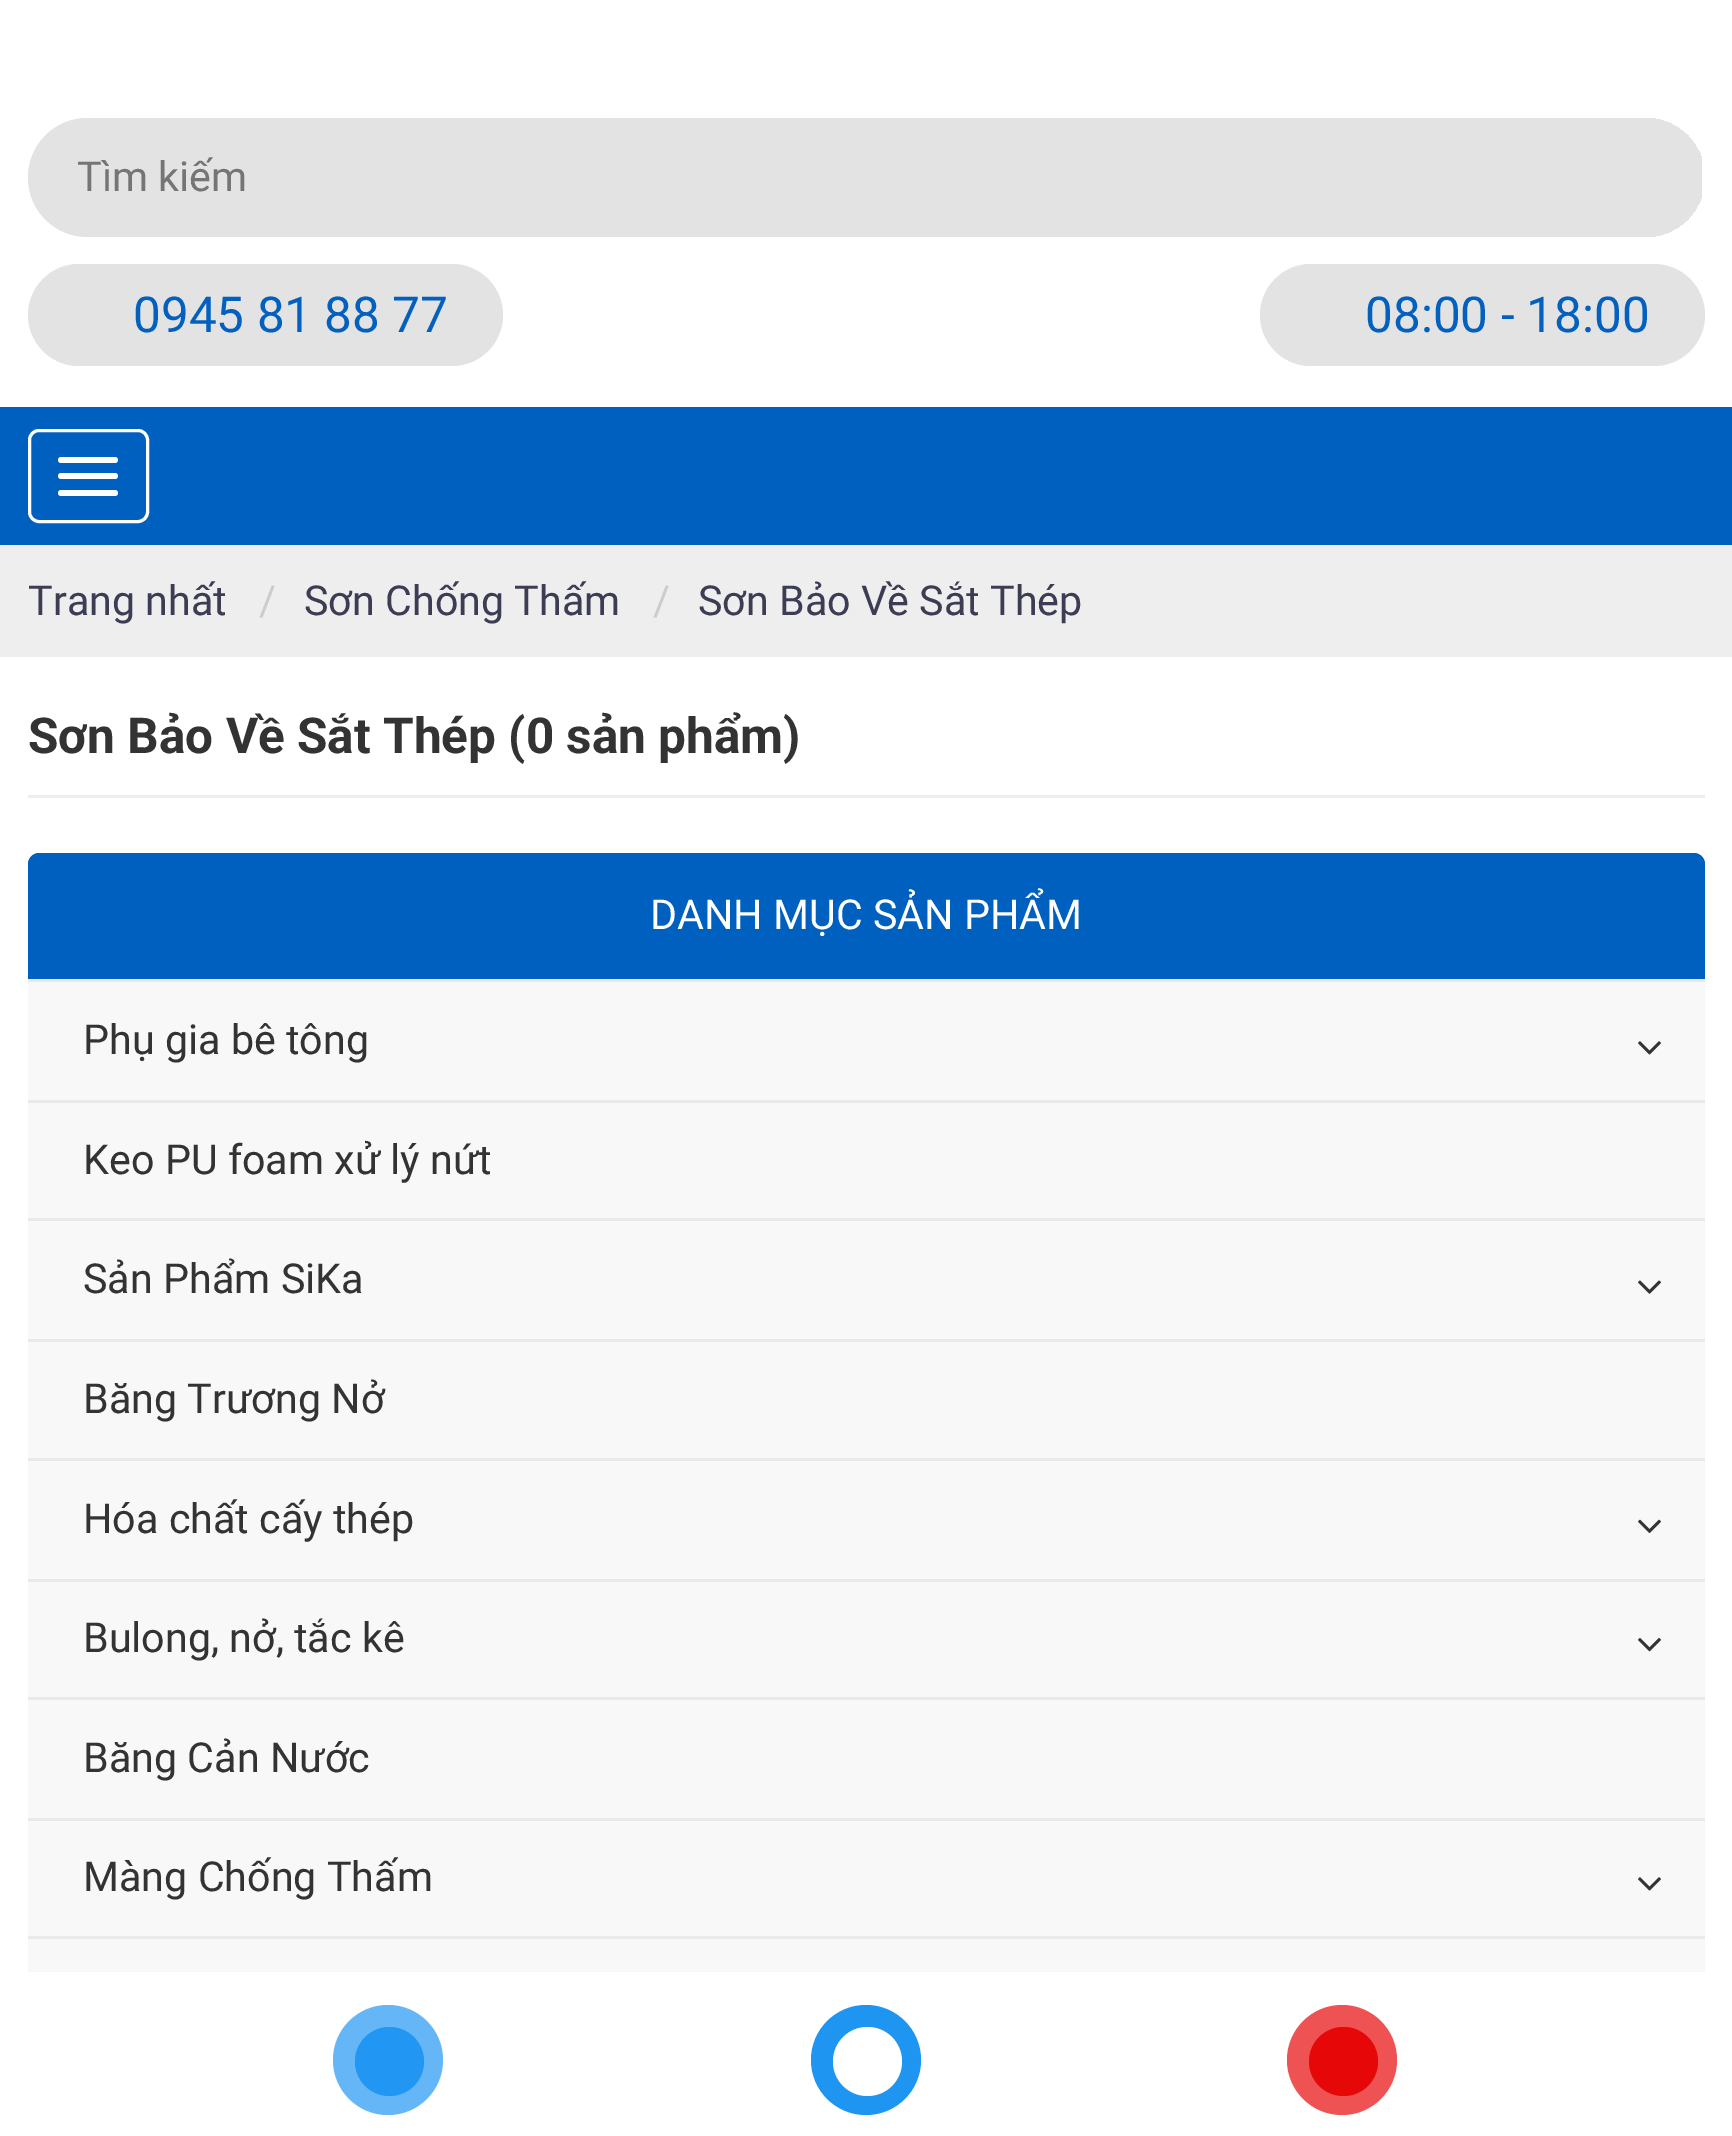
%!PS
<< /PageSize [1732 2136] >> setpagedevice
/roundrect { 5 dict begin { /r /h /w /y /x } { exch def } forall
  x r add y moveto x w add y 2 copy h add r arct x w add y h add x 1 index r arct
  x y h add x y r arct x y 2 copy exch w add exch r arct closepath end } def
/picture { 5 dict begin { /h /w /y /x /name } { exch def } forall
  gsave x y translate w h scale
  w h 8 [w 0 0 h 0 0] name (r) file false 3 colorimage grestore end } def
0 2136 translate 1 -1 scale
4 setmiterlimit
1 setgray
0 0 1732 2136 rectfill
0.89 setgray
newpath 87.5 118 moveto 1537 118 lineto 1537 237 lineto 87.5 237 lineto 54.5 237 28 210.5 28 177.5 curveto 28 144.5 54.5 118 87.5 118 curveto closepath fill
/Roboto-Regular [41.25 0 0 -41.25 0 0] selectfont
0.459 setgray
77 191 moveto (Tìm kiếm) show
gsave
28 118 1677 119 59.5 roundrect clip newpath
0.89 setgray
1537 118 165 119 rectfill
grestore
0.89 setgray
28 264 475 102 51 roundrect fill
/Roboto-Regular [49.5 0 0 -49.5 0 0] selectfont
0.012 0.376 0.749 setrgbcolor
133 332 moveto (0945 81 88 77) show
0.89 setgray
1260 264 445 102 51 roundrect fill
0.012 0.376 0.749 setrgbcolor
1365 332 moveto (08:00 - 18:00) show
0 0.376 0.749 setrgbcolor
0 407 1732 138 rectfill
1 setgray
3 setlinewidth
29.5 430.5 118 91 9.5 roundrect stroke
58 457 60 6 3 roundrect fill
58 473 60 6 3 roundrect fill
58 490 60 6 3 roundrect fill
0.933 setgray
0 545 1732 112 rectfill
/Roboto-Regular [41.25 0 0 -41.25 0 0] selectfont
0.235 0.235 0.329 setrgbcolor
28 615 moveto (Trang nhất) show
0.8 setgray
259 615 moveto (/) show
0.235 0.235 0.329 setrgbcolor
304 615 moveto (Sơn Chống Thấm) show
0.8 setgray
653 615 moveto (/) show
0.235 0.235 0.329 setrgbcolor
698 615 moveto (Sơn Bảo Về Sắt Thép) show
0.933 setgray
28 795 1677 3 rectfill
/Roboto-Bold [49.5 0 0 -49.5 0 0] selectfont
0.2 setgray
28 753 moveto (Sơn Bảo Về Sắt Thép \(0 sản phẩm\)) show
0 0.376 0.749 setrgbcolor
newpath 39 853 moveto 1694 853 lineto 1700 853 1705 858 1705 864 curveto 1705 979 lineto 28 979 lineto 28 864 lineto 28 858 33 853 39 853 curveto closepath fill
/Roboto-Regular [41.25 0 0 -41.25 0 0] selectfont
1 setgray
650 929 moveto (DANH MỤC SẢN PHẨM) show
0.973 setgray
28 982 1677 990 rectfill
0.914 setgray
28 979 1677 3 rectfill
0.2 setgray
83 1054 moveto (Phụ gia bê tông) show
(img1.rgb) 1638 1041 23 14 picture
0.914 setgray
28 1100 1677 3 rectfill
0.2 setgray
83 1174 moveto (Keo PU foam xử lý nứt) show
0.914 setgray
28 1218 1677 3 rectfill
0.2 setgray
83 1293 moveto (Sản Phẩm SiKa) show
(img2.rgb) 1638 1280 23 14 picture
0.914 setgray
28 1339 1677 3 rectfill
0.2 setgray
83 1413 moveto (Băng Trương Nở) show
0.914 setgray
28 1458 1677 3 rectfill
0.2 setgray
83 1533 moveto (Hóa chất cấy thép) show
(img3.rgb) 1638 1519 23 14 picture
0.914 setgray
28 1579 1677 3 rectfill
0.2 setgray
83 1652 moveto (Bulong, nở, tắc kê) show
(img4.rgb) 1638 1638 23 14 picture
0.914 setgray
28 1697 1677 3 rectfill
0.2 setgray
83 1772 moveto (Băng Cản Nước) show
0.914 setgray
28 1818 1677 3 rectfill
0.2 setgray
83 1891 moveto (Màng Chống Thấm) show
(img1.rgb) 1638 1877 23 14 picture
0.914 setgray
28 1936 1677 3 rectfill
0.392 0.714 0.969 setrgbcolor
newpath 388 2060 55 0 360 arc closepath fill
0.129 0.588 0.953 setrgbcolor
newpath 389.5 2061.5 34.5 0 360 arc closepath fill
0.122 0.584 0.949 setrgbcolor
newpath 866 2060 55 0 360 arc closepath fill
1 setgray
newpath 867.5 2061.5 34.5 0 360 arc closepath fill
0.933 0.322 0.322 setrgbcolor
newpath 1342 2060 55 0 360 arc closepath fill
0.902 0.031 0.031 setrgbcolor
newpath 1343.5 2061.5 34.5 0 360 arc closepath fill
showpage
